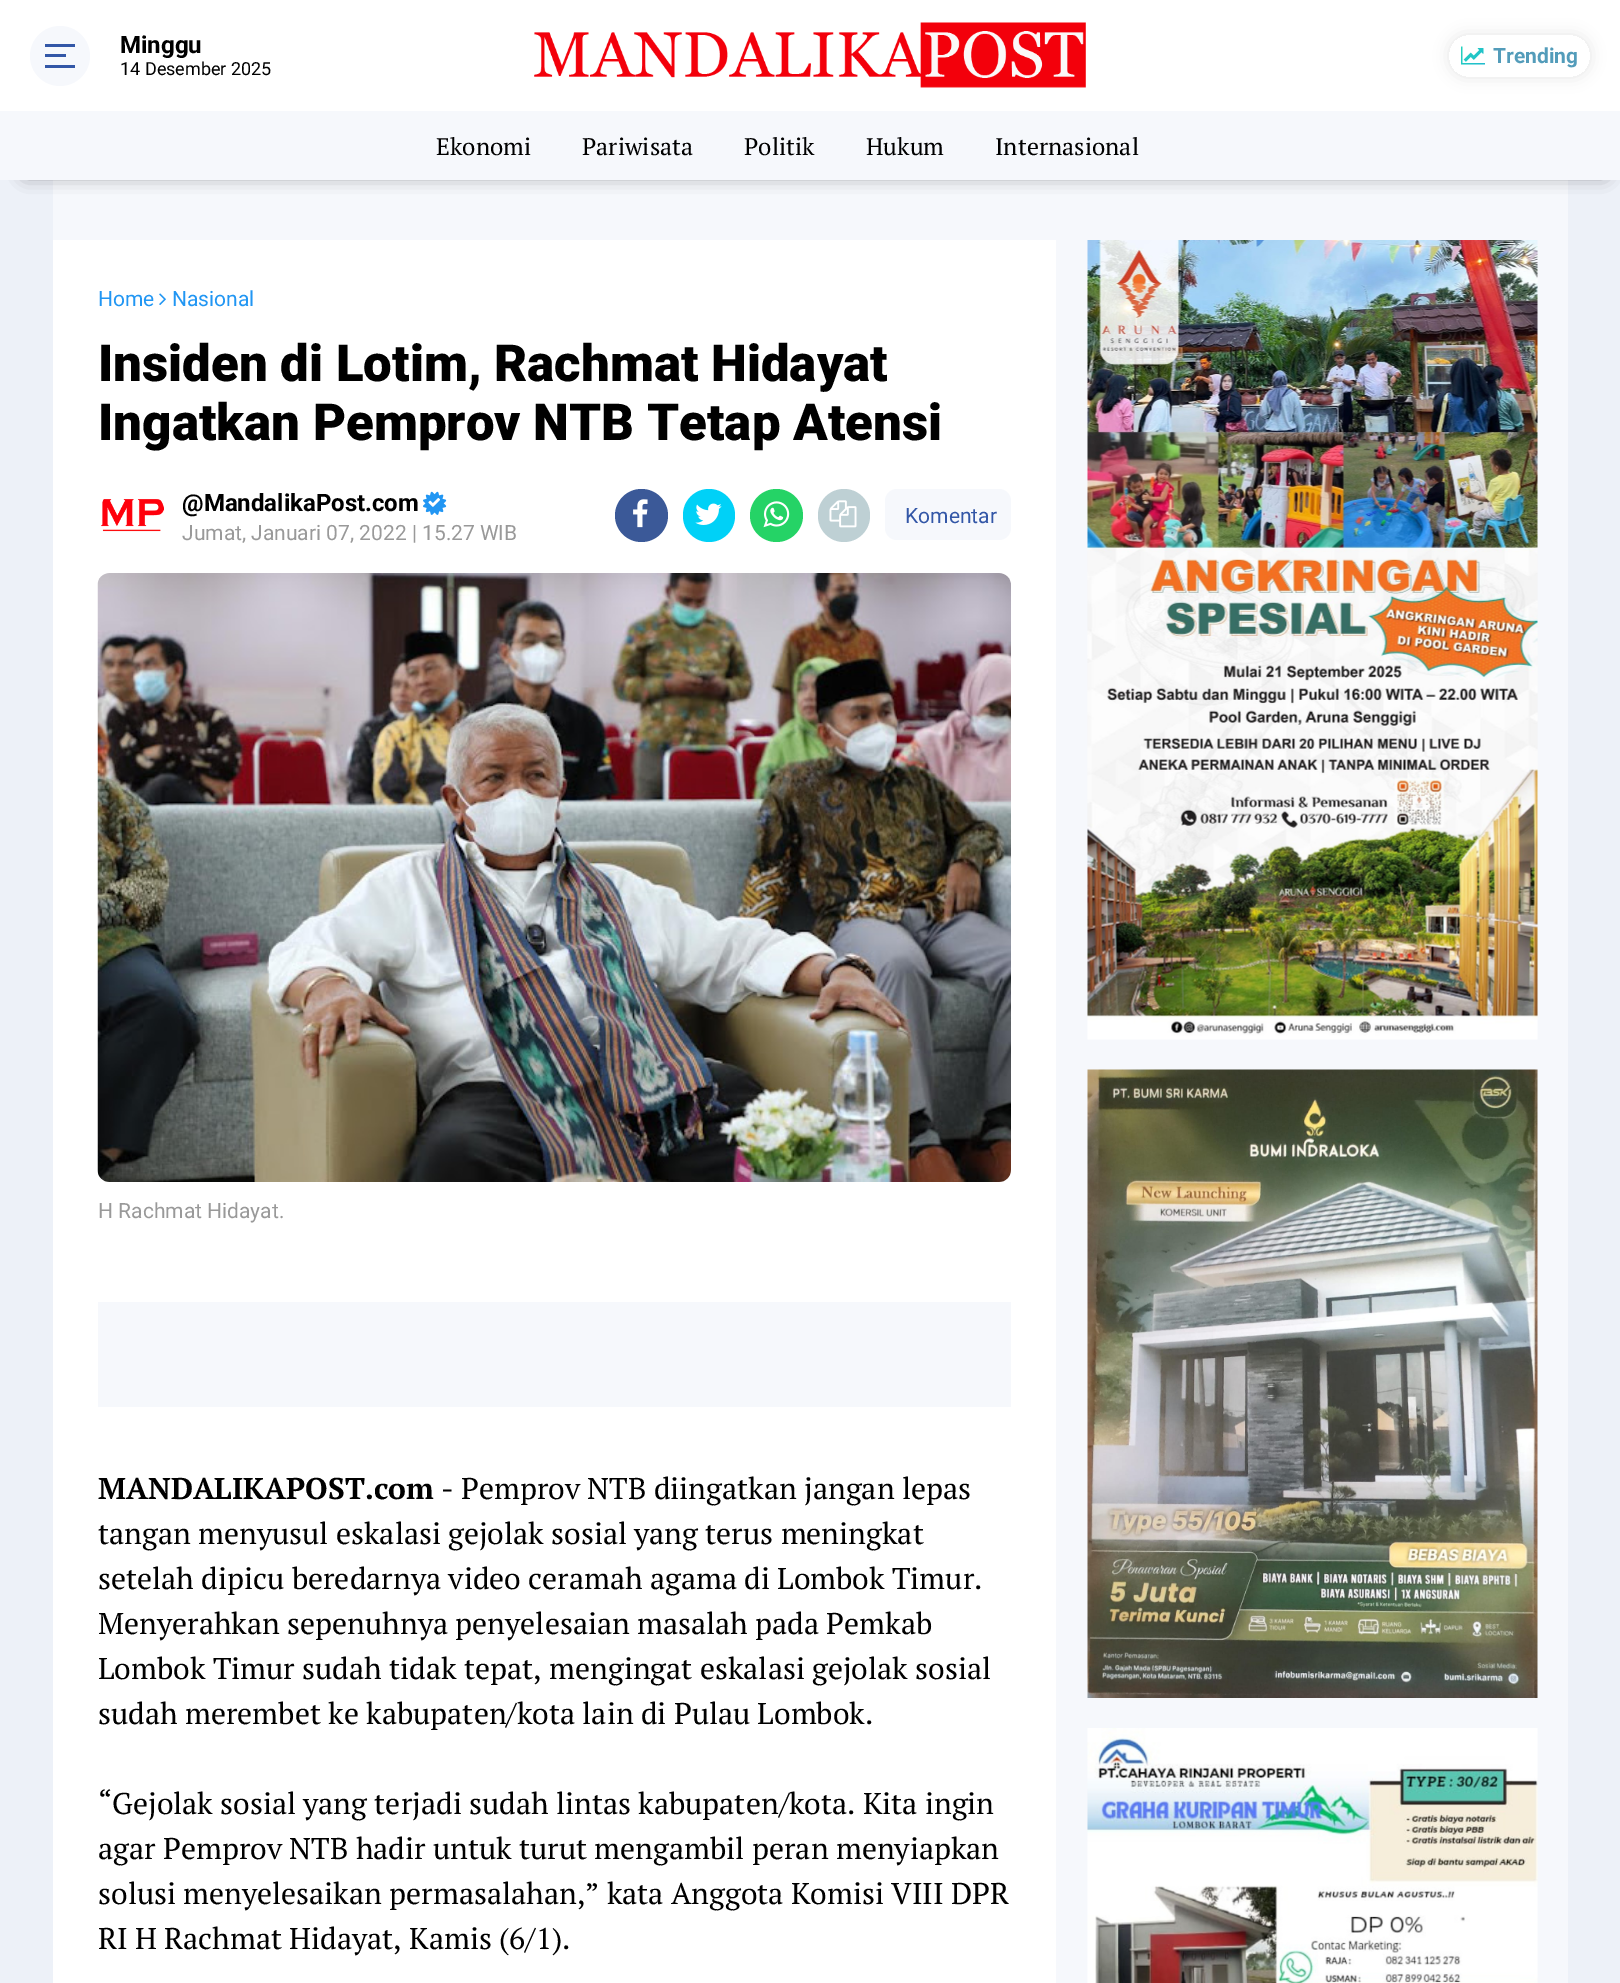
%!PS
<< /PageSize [1620 1983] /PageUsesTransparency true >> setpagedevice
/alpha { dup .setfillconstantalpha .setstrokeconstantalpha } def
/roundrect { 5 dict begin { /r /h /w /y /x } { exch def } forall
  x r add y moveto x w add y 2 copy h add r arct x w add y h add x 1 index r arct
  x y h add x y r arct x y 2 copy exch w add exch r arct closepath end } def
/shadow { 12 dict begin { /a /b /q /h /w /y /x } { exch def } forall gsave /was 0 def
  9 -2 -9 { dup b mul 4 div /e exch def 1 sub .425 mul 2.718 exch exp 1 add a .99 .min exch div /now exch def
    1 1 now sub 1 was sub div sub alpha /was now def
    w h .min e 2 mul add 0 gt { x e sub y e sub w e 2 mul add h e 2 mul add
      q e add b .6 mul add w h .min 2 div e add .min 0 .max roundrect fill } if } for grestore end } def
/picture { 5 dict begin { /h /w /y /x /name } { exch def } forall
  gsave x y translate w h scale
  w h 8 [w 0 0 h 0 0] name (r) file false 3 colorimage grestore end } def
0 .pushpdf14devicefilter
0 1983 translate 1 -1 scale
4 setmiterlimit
0.929 0.945 0.973 setrgbcolor
0 0 1620 1983 rectfill
1 setgray
0 0 1620 111 rectfill
0.965 0.973 0.988 setrgbcolor
newpath 60 56 30 0 360 arc closepath fill
0.2 0.341 0.655 setrgbcolor
45 44 30 3 rectfill
45 54 21 3 rectfill
45 65 30 3 rectfill
/Roboto-Bold [24 0 0 -24 0 0] selectfont
0 setgray
120 53 moveto (Minggu) show
/Roboto-Regular [18 0 0 -18 0 0] selectfont
120 75 moveto (14 Desember 2025) show
(img1.rgb) 534 22 552 66 picture
gsave
newpath 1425 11 moveto 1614 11 lineto 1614 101 lineto 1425 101 lineto closepath 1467 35 moveto 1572 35 lineto 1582 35 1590 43 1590 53 curveto 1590 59 lineto 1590 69 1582 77 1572 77 curveto 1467 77 lineto 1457 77 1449 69 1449 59 curveto 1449 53 lineto 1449 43 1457 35 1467 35 curveto closepath eoclip newpath
1449 35 141 42 18 7.5 0.1 shadow
grestore
(img2.rgb) 1461 46 24 19 picture
/Roboto-Bold [21 0 0 -21 0 0] selectfont
0.325 0.612 0.729 setrgbcolor
1493 63 moveto (Trending) show
0.965 0.973 0.988 setrgbcolor
53 180 1515 1803 rectfill
0 setgray
26 147 1578 27 0 9 0.56 shadow
0.965 0.973 0.988 setrgbcolor
0 111 1620 69 rectfill
/PTSerif-Regular [24 0 0 -24 0 0] selectfont
0 setgray
436 155 moveto (Ekonomi) show
582 155 moveto (Pariwisata) show
744 155 moveto (Politik) show
866 155 moveto (Hukum) show
995 155 moveto (Internasional) show
1 setgray
53 240 1003 1743 rectfill
/Roboto-Regular [21 0 0 -21 0 0] selectfont
0.129 0.588 0.953 setrgbcolor
98 306 moveto (Home) show
(img3.rgb) 159 293 7 12 picture
172 306 moveto (Nasional) show
/Roboto-Black [51 0 0 -51 0 0] selectfont
0 setgray
98 381 moveto (Insiden di Lotim, Rachmat Hidayat) show
98 440 moveto (Ingatkan Pemprov NTB Tetap Atensi) show
(img4.rgb) 101 499 63 33 picture
/Roboto-Bold [24 0 0 -24 0 0] selectfont
182 511 moveto (@MandalikaPost.com) show
(img5.rgb) 423 491 24 24 picture
(img6.rgb) 428 498 12 9 picture
/Roboto-Regular [21 0 0 -21 0 0] selectfont
0.6 setgray
182 540 moveto (Jumat, Januari 07, 2022 | 15.27 WIB) show
0.231 0.349 0.596 setrgbcolor
newpath 641.5 515.5 26.5 0 360 arc closepath fill
(img7.rgb) 633 499 15 29 picture
0 0.82 0.969 setrgbcolor
683 489 52 53 26 roundrect fill
(img8.rgb) 695 503 27 22 picture
0.145 0.827 0.4 setrgbcolor
newpath 776.5 515.5 26.5 0 360 arc closepath fill
(img9.rgb) 763 501 27 27 picture
0.745 0.816 0.831 setrgbcolor
818 489 52 53 26 roundrect fill
(img10.rgb) 829 500 28 28 picture
0.965 0.973 0.988 setrgbcolor
885 489 126 51 12 roundrect fill
0.2 0.341 0.655 setrgbcolor
905 523 moveto (Komentar) show
(img11.rgb) 97 573 914 609 picture
0.6 setgray
98 1218 moveto (H Rachmat Hidayat.) show
0.965 0.973 0.988 setrgbcolor
98 1302 913 105 rectfill
/PTSerif-Bold [30 0 0 -30 0 0] selectfont
0 setgray
98 1499 moveto (MANDALIKAPOST.com) show
/PTSerif-Regular [30 0 0 -30 0 0] selectfont
441 1499 moveto (- Pemprov NTB diingatkan jangan lepas) show
98 1544 moveto (tangan menyusul eskalasi gejolak sosial yang terus meningkat) show
98 1589 moveto (setelah dipicu beredarnya video ceramah agama di Lombok Timur.) show
98 1634 moveto (Menyerahkan sepenuhnya penyelesaian masalah pada Pemkab) show
98 1679 moveto (Lombok Timur sudah tidak tepat, mengingat eskalasi gejolak sosial) show
98 1724 moveto (sudah merembet ke kabupaten/kota lain di Pulau Lombok.) show
98 1814 moveto (“Gejolak sosial yang terjadi sudah lintas kabupaten/kota. Kita ingin) show
98 1859 moveto (agar Pemprov NTB hadir untuk turut mengambil peran menyiapkan) show
98 1904 moveto (solusi menyelesaikan permasalahan,” kata Anggota Komisi VIII DPR) show
98 1949 moveto (RI H Rachmat Hidayat, Kamis \(6/1\).) show
(img12.rgb) 1087 240 451 800 picture
(img13.rgb) 1087 1069 451 629 picture
(img14.rgb) 1087 1728 451 255 picture
.poppdf14devicefilter showpage
